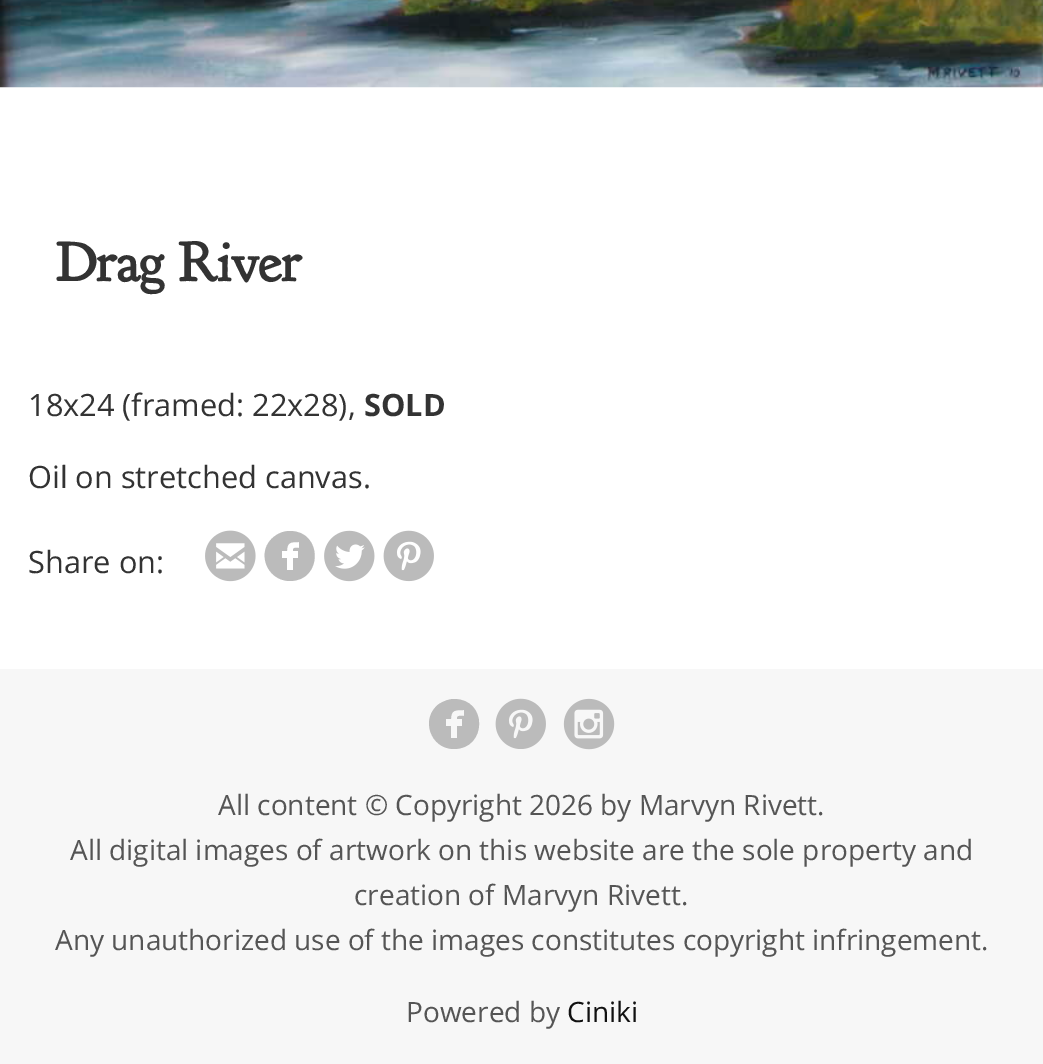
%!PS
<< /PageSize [1043 1064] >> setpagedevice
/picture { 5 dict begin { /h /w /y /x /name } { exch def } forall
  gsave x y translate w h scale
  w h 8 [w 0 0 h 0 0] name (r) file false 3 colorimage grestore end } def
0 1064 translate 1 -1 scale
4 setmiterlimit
1 setgray
0 0 1043 1064 rectfill
(img1.rgb) 0 0 1043 88 picture
/GoudyBookletter1911-Bold [56 0 0 -56 0 0] selectfont
0.2 setgray
56 281 moveto (Drag River) show
/OpenSans-Regular [30.75 0 0 -30.75 0 0] selectfont
28 416 moveto (18x24 \(framed: 22x28\),) show
/OpenSans-Bold [30.75 0 0 -30.75 0 0] selectfont
364 416 moveto (SOLD) show
/OpenSans-Regular [30.75 0 0 -30.75 0 0] selectfont
28 488 moveto (Oil on stretched canvas.) show
28 573 moveto (Share on:) show
0.733 setgray
newpath 290 531 moveto 323 531 323 581 290 581 curveto 266 581 255 550 275 536 curveto 279 533 284 531 290 531 curveto closepath 299 542 moveto 291 542 287 542 287 551 curveto 282 551 lineto 282 558 lineto 287 558 lineto 287 570 lineto 293 570 lineto 293 558 lineto 298 558 lineto 298 551 lineto 293 551 lineto 293 547 295 548 299 548 curveto closepath fill
(img2.rgb) 205 530 51 52 picture
(img3.rgb) 324 530 51 52 picture
(img4.rgb) 383 530 51 52 picture
0.969 setgray
0 669 1043 395 rectfill
0.733 setgray
newpath 454 699 moveto 488 699 487 749 454 749 curveto 430 749 420 718 439 704 curveto 444 701 449 699 454 699 curveto closepath 464 710 moveto 455 710 451 710 451 719 curveto 446 719 lineto 446 726 lineto 451 726 lineto 451 738 lineto 457 738 lineto 457 726 lineto 462 726 lineto 462 719 lineto 457 719 lineto 457 715 460 716 464 716 curveto closepath fill
(img5.rgb) 495 698 51 51 picture
(img6.rgb) 563 698 52 52 picture
/OpenSans-Regular [28 0 0 -28 0 0] selectfont
0.333 setgray
218 815 moveto (All content © Copyright 2026 by Marvyn Rivett.) show
70 860 moveto (All digital images of artwork on this website are the sole property and) show
354 905 moveto (creation of Marvyn Rivett.) show
55 950 moveto (Any unauthorized use of the images constitutes copyright infringement.) show
406 1022 moveto (Powered by) show
0.067 setgray
567 1022 moveto (Ciniki) show
showpage
